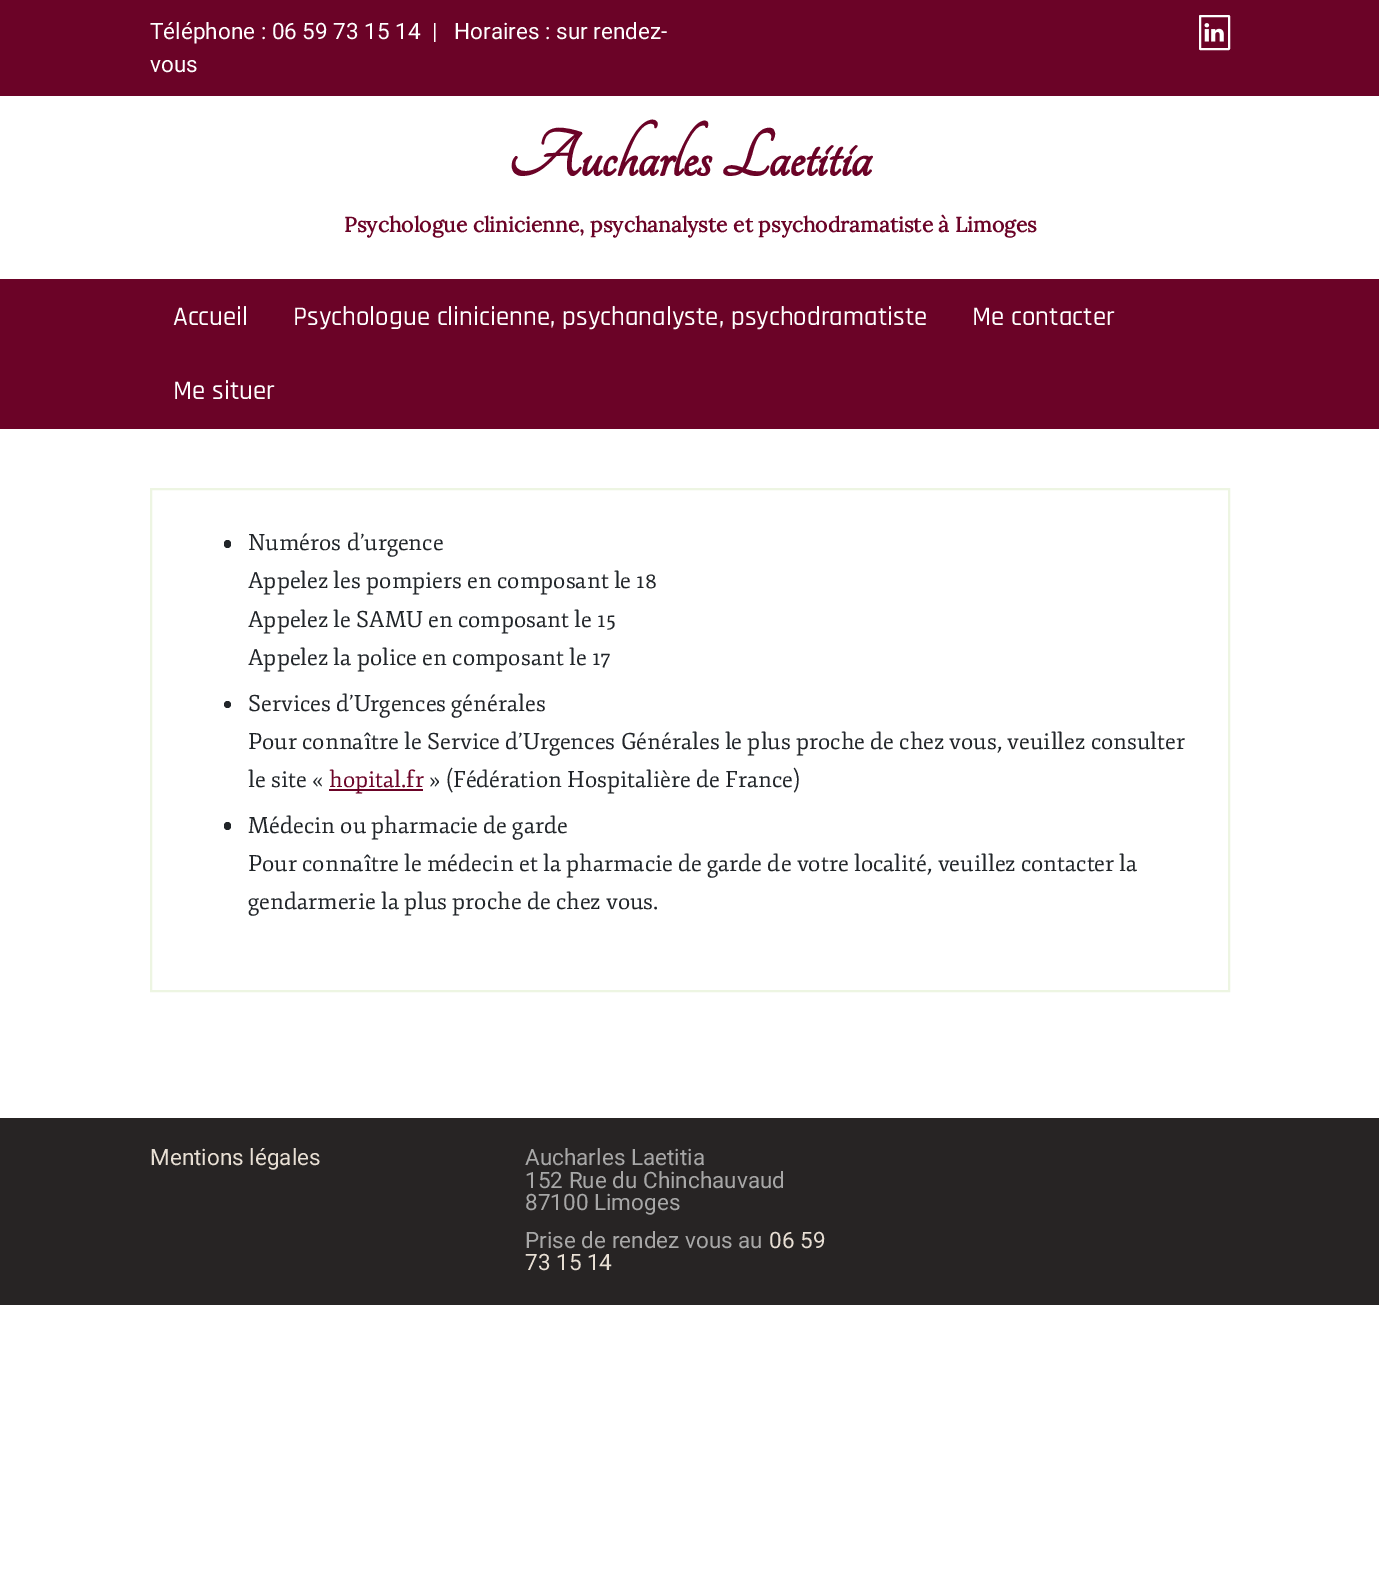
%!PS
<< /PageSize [1379 1576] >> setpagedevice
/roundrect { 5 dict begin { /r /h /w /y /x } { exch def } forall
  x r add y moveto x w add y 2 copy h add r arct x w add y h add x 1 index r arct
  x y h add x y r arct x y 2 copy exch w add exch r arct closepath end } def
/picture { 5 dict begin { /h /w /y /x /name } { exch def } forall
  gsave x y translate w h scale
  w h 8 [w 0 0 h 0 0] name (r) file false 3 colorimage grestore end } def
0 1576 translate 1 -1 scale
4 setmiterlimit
1 setgray
0 0 1379 1576 rectfill
0.42 0.012 0.153 setrgbcolor
0 0 1379 96 rectfill
/Roboto-Regular [22.5 0 0 -22.5 0 0] selectfont
1 setgray
150 39 moveto (Téléphone : 06 59 73 15 14) show
432 39 moveto (|   Horaires : sur rendez-) show
150 72 moveto (vous) show
2 setlinewidth
1200 16 29 33 0.5 roundrect stroke
(img1.rgb) 1204 23 20 19 picture
/Tangerine-Bold [72 0 0 -72 0 0] selectfont
0.42 0.012 0.153 setrgbcolor
508 176 moveto (Aucharles Laetitia) show
/Lora-Bold [21 0 0 -21 0 0] selectfont
344 232 moveto (Psychologue clinicienne, psychanalyste et psychodramatiste à Limoges) show
0 279 1379 150 rectfill
/Rajdhani-Medium [27 0 0 -27 0 0] selectfont
1 setgray
173 325 moveto (Accueil) show
293 325 moveto (Psychologue clinicienne, psychanalyste, psychodramatiste) show
972 325 moveto (Me contacter) show
173 399 moveto (Me situer) show
0.929 0.961 0.886 setrgbcolor
151 489 1078 502 rectstroke
0.129 0.145 0.161 setrgbcolor
224 540 7 8 3.5 roundrect fill
/Fjord-Regular [22.5 0 0 -22.5 0 0] selectfont
248 550 moveto (Numéros d’urgence) show
248 588 moveto (Appelez les pompiers en composant le 18) show
248 627 moveto (Appelez le SAMU en composant le 15) show
248 665 moveto (Appelez la police en composant le 17) show
newpath 227.5 704.5 3.5 0 360 arc closepath fill
248 711 moveto (Services d’Urgences générales) show
248 749 moveto (Pour connaître le Service d’Urgences Générales le plus proche de chez vous, veuillez consulter) show
248 787 moveto (le site «) show
0.42 0.012 0.153 setrgbcolor
329 789 94 2 rectfill
329 787 moveto (hopital.fr) show
0.129 0.145 0.161 setrgbcolor
429 787 moveto (» \(Fédération Hospitalière de France\)) show
224 822 7 8 3.5 roundrect fill
248 833 moveto (Médecin ou pharmacie de garde) show
248 871 moveto (Pour connaître le médecin et la pharmacie de garde de votre localité, veuillez contacter la) show
248 909 moveto (gendarmerie la plus proche de chez vous.) show
0.153 0.141 0.141 setrgbcolor
0 1118 1379 187 rectfill
/Roboto-Regular [22.5 0 0 -22.5 0 0] selectfont
0.91 0.875 0.831 setrgbcolor
150 1165 moveto (Mentions légales) show
0.655 setgray
525 1165 moveto (Aucharles Laetitia) show
525 1188 moveto (152 Rue du Chinchauvaud) show
525 1210 moveto (87100 Limoges) show
525 1248 moveto (Prise de rendez vous au) show
0.91 0.875 0.831 setrgbcolor
769 1248 moveto (06 59) show
525 1270 moveto (73 15 14) show
showpage
